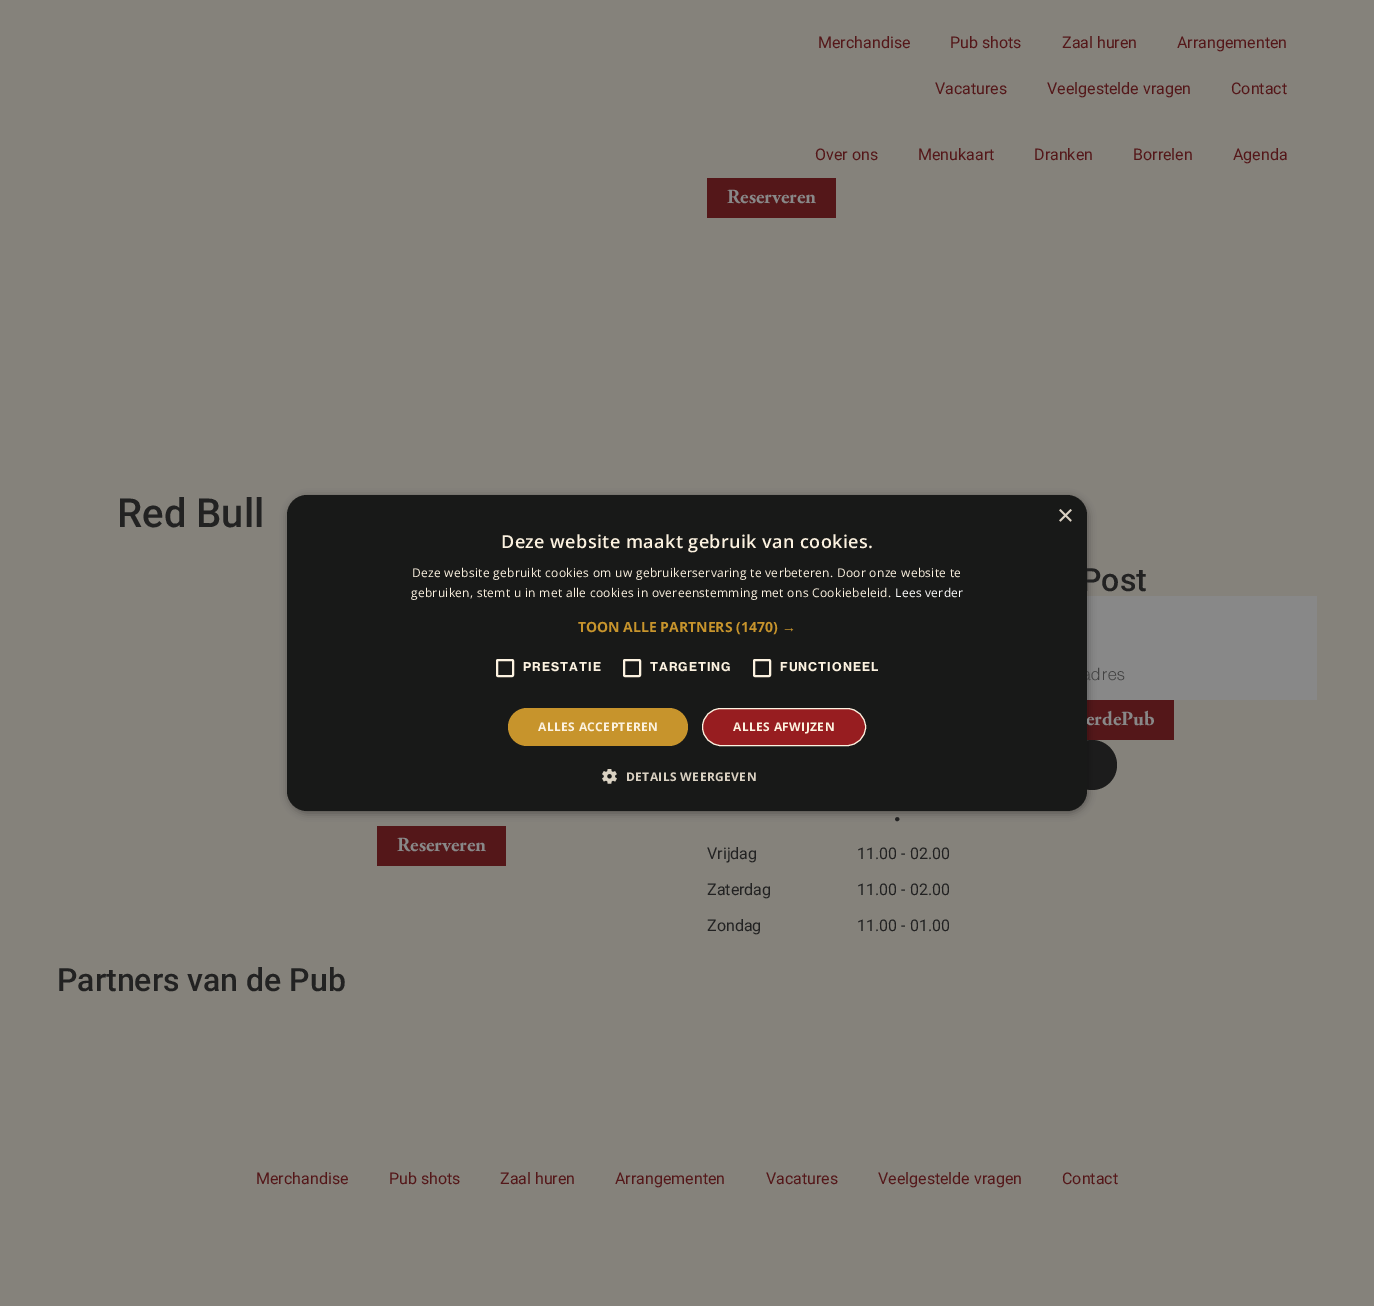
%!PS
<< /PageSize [1374 1306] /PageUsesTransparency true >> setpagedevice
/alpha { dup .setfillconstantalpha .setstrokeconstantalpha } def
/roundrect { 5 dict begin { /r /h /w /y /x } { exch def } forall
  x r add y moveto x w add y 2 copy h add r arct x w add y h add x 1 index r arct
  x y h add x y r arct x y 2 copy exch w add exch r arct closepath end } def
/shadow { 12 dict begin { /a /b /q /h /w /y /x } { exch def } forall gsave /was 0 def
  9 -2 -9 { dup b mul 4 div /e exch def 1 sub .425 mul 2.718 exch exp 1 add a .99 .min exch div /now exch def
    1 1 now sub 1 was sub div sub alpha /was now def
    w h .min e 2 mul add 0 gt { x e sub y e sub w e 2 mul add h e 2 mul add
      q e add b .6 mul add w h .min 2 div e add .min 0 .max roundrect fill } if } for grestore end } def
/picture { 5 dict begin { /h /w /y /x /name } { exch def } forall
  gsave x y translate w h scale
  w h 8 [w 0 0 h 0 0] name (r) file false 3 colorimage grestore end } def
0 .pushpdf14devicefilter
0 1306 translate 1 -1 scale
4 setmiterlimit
0.522 0.51 0.482 setrgbcolor
0 0 1374 1306 rectfill
/Roboto-Regular [16 0 0 -16 0 0] selectfont
0.329 0.09 0.098 setrgbcolor
818 48 moveto (Merchandise) show
950 48 moveto (Pub shots) show
1062 48 moveto (Zaal huren) show
1177 48 moveto (Arrangementen) show
935 94 moveto (Vacatures) show
1047 94 moveto (Veelgestelde vragen) show
1231 94 moveto (Contact) show
815 160 moveto (Over ons) show
918 160 moveto (Menukaart) show
1034 160 moveto (Dranken) show
1133 160 moveto (Borrelen) show
1233 160 moveto (Agenda) show
707 178 129 40 rectfill
/AdobeGaramond-Bold [20 0 0 -20 0 0] selectfont
0.533 setgray
727 203 moveto (Reserveren) show
/Roboto-Medium [40 0 0 -40 0 0] selectfont
0.133 setgray
117 527 moveto (Red Bull) show
0.533 setgray
1087 596 230 104 rectfill
0.329 0.09 0.098 setrgbcolor
1087 700 87 40 rectfill
0.11 setgray
newpath 1092 765 25 0 360 arc closepath fill
0 setgray
288 497 800 316 20 4 0.35 shadow
/Roboto-Medium [32 0 0 -32 0 0] selectfont
0.133 setgray
1081 591 moveto (Post) show
/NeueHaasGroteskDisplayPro-Regular [17 0 0 -17 0 0] selectfont
0.263 setgray
1082 680 moveto 1 0 (adres) ashow
/AdobeGaramond-Bold [20 0 0 -20 0 0] selectfont
0.533 setgray
1086 725 moveto (erdePub) show
0.094 0.098 0.094 setrgbcolor
287 495 800 316 20 roundrect fill
/LiberationSans-Regular [29 0 0 -29 0 0] selectfont
0.855 0.82 0.761 setrgbcolor
1057 525 moveto (×) show
/OpenSans-SemiBold [18 0 0 -18 0 0] selectfont
0.988 0.949 0.878 setrgbcolor
501 548 moveto 0.4 0 (Deze website maakt gebruik van cookies.) ashow
/OpenSans-Regular [12 0 0 -12 0 0] selectfont
412 577 moveto 0.3 0 (Deze website gebruikt cookies om uw gebruikerservaring te verbeteren. Door onze website te) ashow
411 597 moveto 0.3 0 (gebruiken, stemt u in met alle cookies in overeenstemming met ons Cookiebeleid.) ashow
1 setgray
895 597 moveto 0.3 0 (Lees verder) ashow
/OpenSans-Bold [14 0 0 -14 0 0] selectfont
0.78 0.58 0.173 setrgbcolor
578 632 moveto (TOON ALLE PARTNERS \(1470\)) show
/LiberationSans-Bold [14 0 0 -14 0 0] selectfont
782 632 moveto (→) show
0.988 0.949 0.878 setrgbcolor
2 setlinewidth
497 660 16 16 1 roundrect stroke
/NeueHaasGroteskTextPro-Bold [12 0 0 -12 0 0] selectfont
523 671 moveto 1 0 (PRESTATIE) ashow
624 660 16 16 1 roundrect stroke
650 671 moveto 1 0 (TARGETING) ashow
754 660 16 16 1 roundrect stroke
780 671 moveto 1 0 (FUNCTIONEEL) ashow
0.78 0.58 0.173 setrgbcolor
508 708 180 38 19 roundrect fill
/OpenSans-Bold [12 0 0 -12 0 0] selectfont
0.988 0.949 0.878 setrgbcolor
538 731 moveto 0.4 0 (ALLES ACCEPTEREN) ashow
0.592 0.114 0.125 setrgbcolor
702.5 708.5 163 37 18.5 roundrect gsave fill grestore
0.988 0.949 0.878 setrgbcolor
1 setlinewidth
stroke
733 731 moveto 0.4 0 (ALLES AFWIJZEN) ashow
(img1.rgb) 602 769 15 15 picture
0.855 0.82 0.761 setrgbcolor
626 781 moveto 0.4 0 (DETAILS WEERGEVEN) ashow
0.329 0.09 0.098 setrgbcolor
377 826 129 40 rectfill
/AdobeGaramond-Bold [20 0 0 -20 0 0] selectfont
0.533 setgray
397 851 moveto (Reserveren) show
/Roboto-Medium [32 0 0 -32 0 0] selectfont
0.133 setgray
893 821 moveto (.) show
/Roboto-Regular [16 0 0 -16 0 0] selectfont
707 859 moveto (Vrijdag) show
857 859 moveto (11.00 - 02.00) show
707 895 moveto (Zaterdag) show
857 895 moveto (11.00 - 02.00) show
707 931 moveto (Zondag) show
857 931 moveto (11.00 - 01.00) show
/Roboto-Medium [32 0 0 -32 0 0] selectfont
57 991 moveto (Partners van de Pub) show
/Roboto-Regular [16 0 0 -16 0 0] selectfont
0.329 0.09 0.098 setrgbcolor
256 1184 moveto (Merchandise) show
389 1184 moveto (Pub shots) show
500 1184 moveto (Zaal huren) show
615 1184 moveto (Arrangementen) show
766 1184 moveto (Vacatures) show
878 1184 moveto (Veelgestelde vragen) show
1062 1184 moveto (Contact) show
.poppdf14devicefilter showpage
